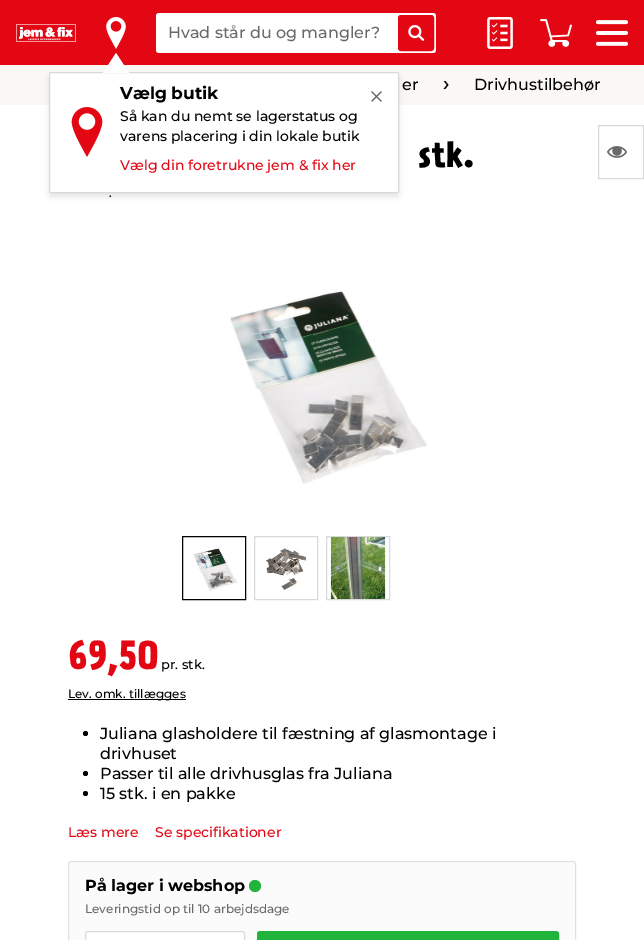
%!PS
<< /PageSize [644 940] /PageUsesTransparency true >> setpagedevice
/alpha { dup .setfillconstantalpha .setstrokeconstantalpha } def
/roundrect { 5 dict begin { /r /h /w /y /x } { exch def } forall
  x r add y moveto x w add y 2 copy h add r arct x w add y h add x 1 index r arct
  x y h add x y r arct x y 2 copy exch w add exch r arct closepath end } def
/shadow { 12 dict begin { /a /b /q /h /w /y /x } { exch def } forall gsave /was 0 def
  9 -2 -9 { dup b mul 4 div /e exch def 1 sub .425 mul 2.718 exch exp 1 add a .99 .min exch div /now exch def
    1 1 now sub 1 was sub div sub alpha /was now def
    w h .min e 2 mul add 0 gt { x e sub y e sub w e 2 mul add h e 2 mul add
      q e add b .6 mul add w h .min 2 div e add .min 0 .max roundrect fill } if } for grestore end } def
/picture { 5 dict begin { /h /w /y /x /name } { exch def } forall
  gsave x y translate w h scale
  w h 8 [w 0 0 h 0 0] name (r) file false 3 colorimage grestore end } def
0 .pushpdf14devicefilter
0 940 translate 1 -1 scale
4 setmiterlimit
0.98 0.973 0.961 setrgbcolor
0 0 644 940 rectfill
0.89 0.024 0.075 setrgbcolor
0 0 644 65 rectfill
(img1.rgb) 16 24 60 18 picture
1 setgray
156 13 280 40 3 roundrect fill
/Montserrat-Medium [16 0 0 -16 0 0] selectfont
0.412 setgray
168 38 moveto (Hvad står du og mangler?) show
0.89 0.024 0.075 setrgbcolor
398.5 15.5 35 35 2.5 roundrect gsave fill grestore
stroke
(img2.rgb) 408 25 17 16 picture
(img3.rgb) 487 17 26 32 picture
(img4.rgb) 540 19 32 28 picture
(img5.rgb) 596 20 32 26 picture
(img6.rgb) 106 17 20 32 picture
1 setgray
0 105 644 835 rectfill
0 setgray
49 76 350 121 2 3 0.1 shadow
1 setgray
49.5 72.5 349 120 1.5 roundrect gsave fill grestore
0.851 setgray
stroke
1 setgray
newpath 129 73 moveto 103 73 lineto 116 53 lineto closepath fill
/Montserrat-Bold [17 0 0 -17 0 0] selectfont
0 setgray
120 99 moveto (Vælg butik) show
/Montserrat-Medium [14 0 0 -14 0 0] selectfont
120 121 moveto (Så kan du nemt se lagerstatus og) show
120 141 moveto (varens placering i din lokale butik) show
0.89 0.024 0.075 setrgbcolor
120 170 moveto (Vælg din foretrukne jem & fix her) show
(img7.rgb) 371 91 11 11 picture
(img8.rgb) 71 107 32 50 picture
/Montserrat-Medium [16 0 0 -16 0 0] selectfont
0 setgray
402 90 moveto (er) show
(img9.rgb) 443 81 6 8 picture
474 90 moveto (Drivhustilbehør) show
/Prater-Regular [32 0 0 -32 0 0] selectfont
418 167 moveto (stk.) show
/Montserrat-Medium [12 0 0 -12 0 0] selectfont
109 197 moveto (.) show
(img10.rgb) 230 291 197 193 picture
182.5 536.5 63 63 rectstroke
(img11.rgb) 193 545 45 46 picture
0.851 setgray
254.5 536.5 63 63 rectstroke
(img12.rgb) 263 546 46 45 picture
326.5 536.5 63 63 rectstroke
(img13.rgb) 330 537 56 62 picture
/Prater-Regular [36 0 0 -36 0 0] selectfont
0.89 0.024 0.075 setrgbcolor
68 669 moveto (69,50) show
/Montserrat-Medium [13 0 0 -13 0 0] selectfont
0 setgray
161 669 moveto (pr. stk.) show
68 699 118 1 rectfill
/Montserrat-Medium [12 0 0 -12 0 0] selectfont
68 698 moveto (Lev. omk. tillægges) show
newpath 85.5 733.5 2.5 0 360 arc closepath fill
/Montserrat-Medium [16 0 0 -16 0 0] selectfont
100 739 moveto (Juliana glasholdere til fæstning af glasmontage i) show
100 759 moveto (drivhuset) show
newpath 85.5 773.5 2.5 0 360 arc closepath fill
100 779 moveto (Passer til alle drivhusglas fra Juliana) show
newpath 85.5 793.5 2.5 0 360 arc closepath fill
100 799 moveto (15 stk. i en pakke) show
/Montserrat-Medium [14 0 0 -14 0 0] selectfont
0.89 0.024 0.075 setrgbcolor
68 837 moveto (Læs mere) show
155 837 moveto (Se specifikationer) show
0.984 setgray
68.5 861.5 507 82 2.5 roundrect gsave fill grestore
0.882 setgray
stroke
/Montserrat-Bold [16 0 0 -16 0 0] selectfont
0 setgray
85 891 moveto (På lager i webshop) show
0.129 0.706 0.239 setrgbcolor
newpath 255 886 6 0 360 arc closepath fill
/Montserrat-Medium [12 0 0 -12 0 0] selectfont
0.412 setgray
85 913 moveto (Leveringstid op til 10 arbejdsdage) show
1 setgray
85.5 931.5 159 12 2.5 roundrect gsave fill grestore
0.851 setgray
stroke
0.129 0.706 0.239 setrgbcolor
257.5 931.5 301 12 2.5 roundrect gsave fill grestore
stroke
0.851 setgray
598.5 125.5 45 53 rectstroke
(img14.rgb) 607 146 20 12 picture
.poppdf14devicefilter showpage
